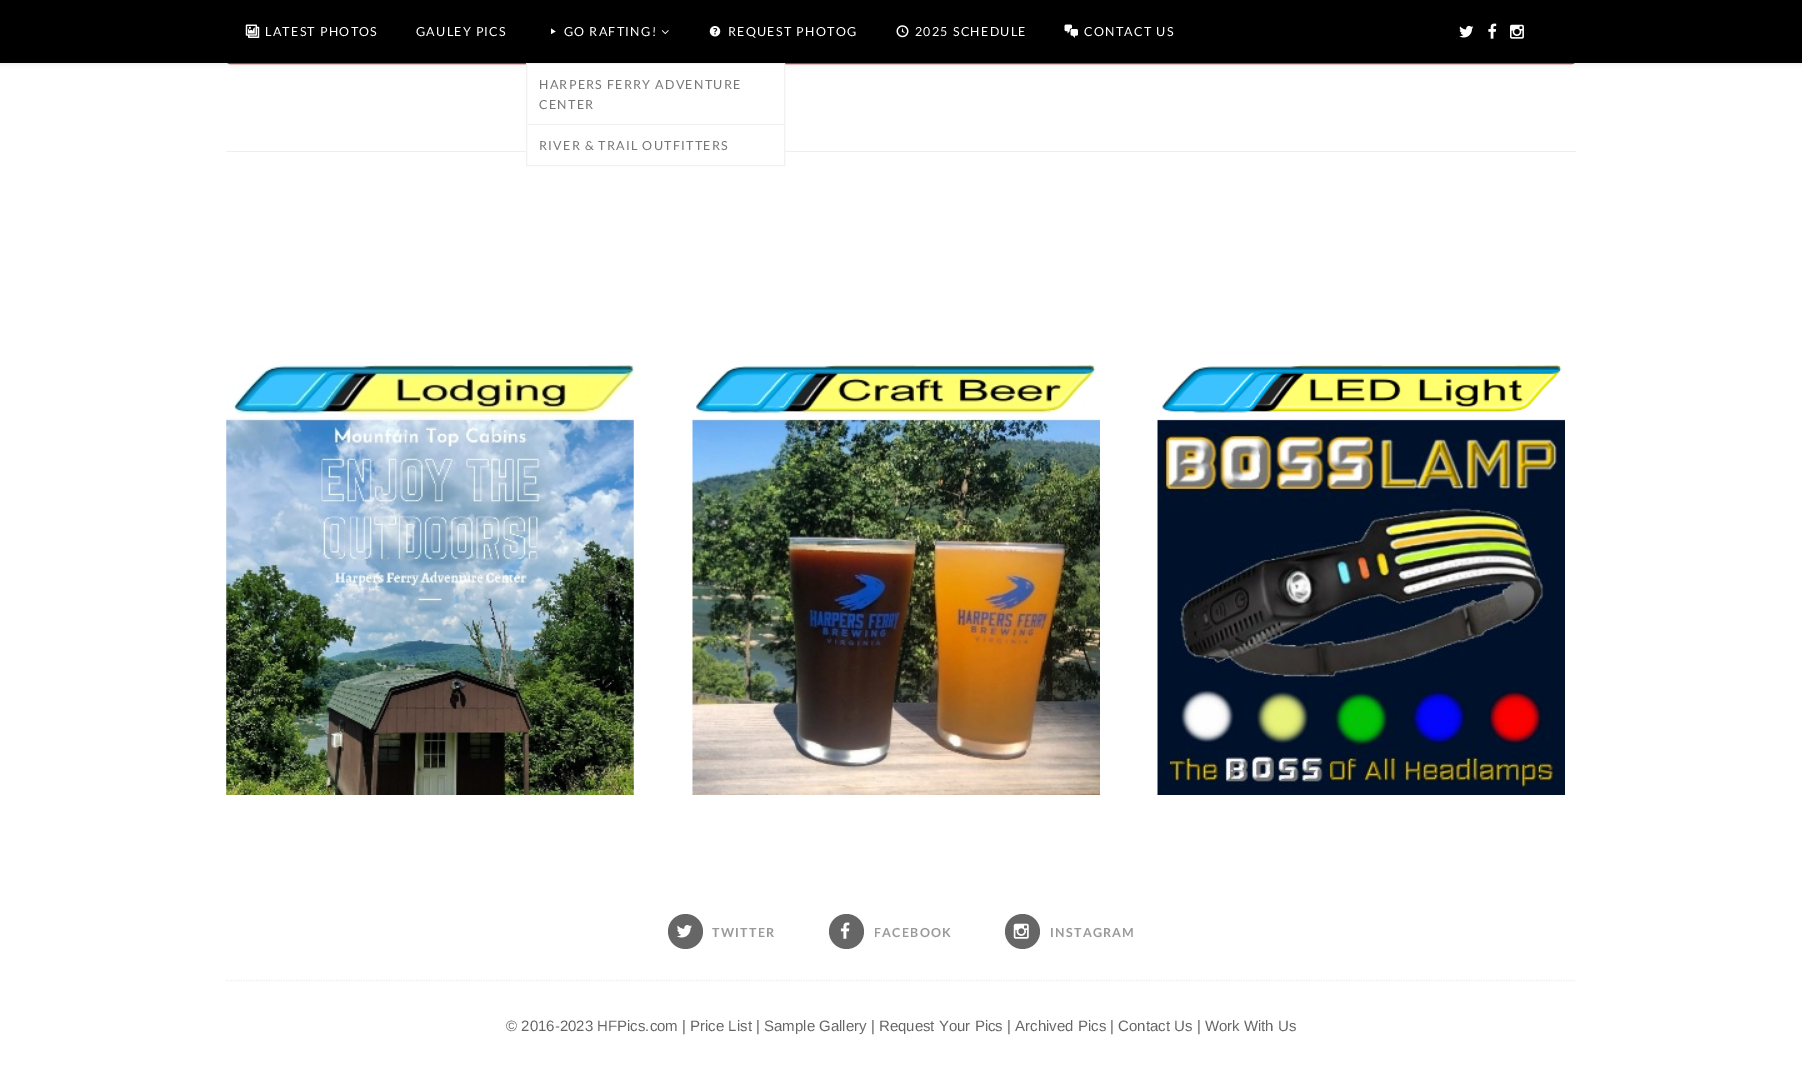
%!PS
<< /PageSize [1802 1077] /PageUsesTransparency true >> setpagedevice
/alpha { dup .setfillconstantalpha .setstrokeconstantalpha } def
/roundrect { 5 dict begin { /r /h /w /y /x } { exch def } forall
  x r add y moveto x w add y 2 copy h add r arct x w add y h add x 1 index r arct
  x y h add x y r arct x y 2 copy exch w add exch r arct closepath end } def
/shadow { 12 dict begin { /a /b /q /h /w /y /x } { exch def } forall gsave /was 0 def
  9 -2 -9 { dup b mul 4 div /e exch def 1 sub .425 mul 2.718 exch exp 1 add a .99 .min exch div /now exch def
    1 1 now sub 1 was sub div sub alpha /was now def
    w h .min e 2 mul add 0 gt { x e sub y e sub w e 2 mul add h e 2 mul add
      q e add b .6 mul add w h .min 2 div e add .min 0 .max roundrect fill } if } for grestore end } def
/picture { 5 dict begin { /h /w /y /x /name } { exch def } forall
  gsave x y translate w h scale
  w h 8 [w 0 0 h 0 0] name (r) file false 3 colorimage grestore end } def
0 .pushpdf14devicefilter
0 1077 translate 1 -1 scale
4 setmiterlimit
1 setgray
0 0 1802 1077 rectfill
0.933 setgray
226 151 1350 1 rectfill
0.8 0 0 setrgbcolor
226.5 14.5 1349 49 3.5 roundrect stroke
0.745 setgray
0 1 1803 63 0 3 0.46 shadow
0 setgray
0 0 1802 63 rectfill
(img1.rgb) 245 24 15 14 picture
/Lato-Regular [12.5 0 0 -12.5 0 0] selectfont
1 setgray
265 36 moveto 1.25 0 (LATEST PHOTOS) ashow
416 36 moveto 1.25 0 (GAULEY PICS) ashow
newpath 551 28.5 moveto 555.5 31.5 lineto 551 34 lineto closepath fill
564 36 moveto 1.25 0 (GO RAFTING!) ashow
(img2.rgb) 661 30 8 5 picture
527 64 257 88 rectfill
0.941 setgray
526.5 63.5 258 102 rectstroke
528 124 256 1 rectfill
0.467 setgray
539 89 moveto 1.25 0 (HARPERS FERRY ADVENTURE) ashow
539 109 moveto 1.25 0 (CENTER) ashow
539 150 moveto 1.25 0 (RIVER & TRAIL OUTFITTERS) ashow
(img3.rgb) 709 26 12 11 picture
1 setgray
728 36 moveto 1.25 0 (REQUEST PHOTOG) ashow
(img4.rgb) 896 25 13 13 picture
915 36 moveto 1.25 0 (2025 SCHEDULE) ashow
(img5.rgb) 1064 24 14 14 picture
1084 36 moveto 1.25 0 (CONTACT US) ashow
(img6.rgb) 1459 25 15 13 picture
(img7.rgb) 1488 23 9 16 picture
(img8.rgb) 1510 24 14 15 picture
(img9.rgb) 226 365 408 430 picture
(img10.rgb) 692 365 408 430 picture
(img11.rgb) 1157 365 408 430 picture
0.933 setgray
1.2 setlinewidth
[1.25 1.25] 0 setdash
newpath 226 980.5 moveto 1576 980.5 lineto stroke
0.4 setgray
newpath 685.5 931.5 17.5 0 360 arc closepath fill
(img12.rgb) 676 925 16 13 picture
/Lato-Bold [12.5 0 0 -12.5 0 0] selectfont
0.6 setgray
712 937 moveto 1.25 0 (TWITTER) ashow
0.4 setgray
newpath 846.5 931.5 17.5 0 360 arc closepath fill
(img13.rgb) 840 922 10 17 picture
0.6 setgray
874 937 moveto 1.25 0 (FACEBOOK) ashow
0.4 setgray
newpath 1022.5 931.5 17.5 0 360 arc closepath fill
(img14.rgb) 1013 923 16 16 picture
0.6 setgray
1050 937 moveto 1.25 0 (INSTAGRAM) ashow
/LiberationSans-Regular [15 0 0 -15 0 0] selectfont
0.4 setgray
506 1031 moveto (© 2016-2023 HFPics.com | Price List | Sample Gallery | Request Your Pics | Archived Pics | Contact Us | Work With Us) show
.poppdf14devicefilter showpage
